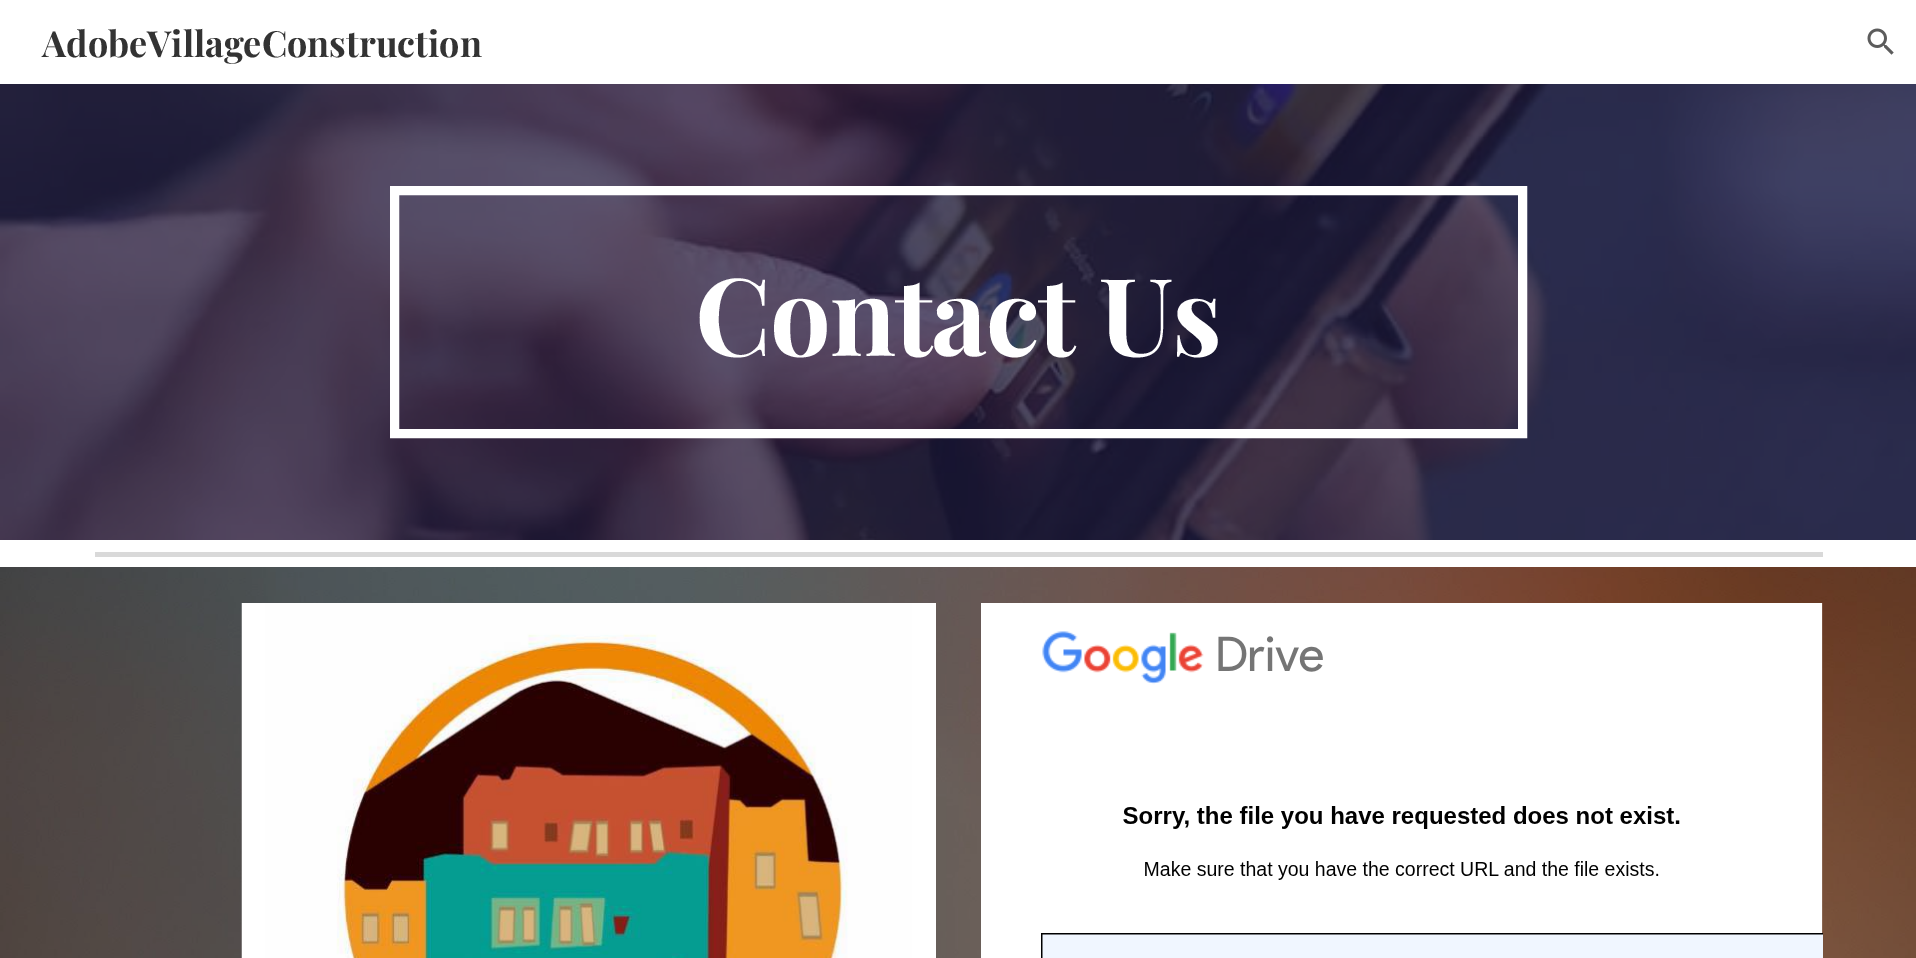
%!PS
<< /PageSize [1916 958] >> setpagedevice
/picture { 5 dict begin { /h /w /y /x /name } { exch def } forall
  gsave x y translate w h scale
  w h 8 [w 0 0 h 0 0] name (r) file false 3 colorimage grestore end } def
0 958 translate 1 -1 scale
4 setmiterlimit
1 setgray
0 0 1916 958 rectfill
/PlayfairDisplay-Bold [36 0 0 -36 0 0] selectfont
0.2 setgray
42 57 moveto (AdobeVillageConstruction) show
(img1.rgb) 1867 28 27 27 picture
(img2.rgb) 0 84 1916 456 picture
1 setgray
9 setlinewidth
394.5 190.5 1128 243 rectstroke
/PlayfairDisplay-Bold [108 0 0 -108 0 0] selectfont
695 356 moveto -1.25 0 (Contact Us) ashow
0.851 setgray
95 552 1728 5 rectfill
(img3.rgb) 0 567 1916 391 picture
(img4.rgb) 241 603 695 355 picture
(img5.rgb) 981 603 842 355 picture
showpage
